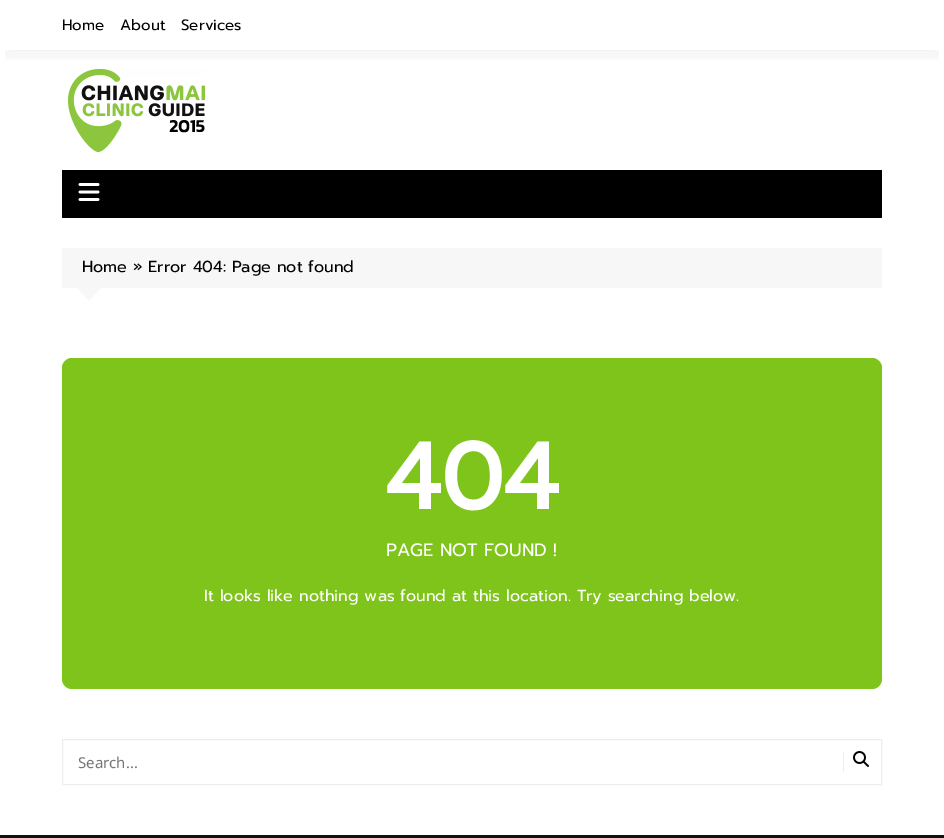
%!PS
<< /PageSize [944 838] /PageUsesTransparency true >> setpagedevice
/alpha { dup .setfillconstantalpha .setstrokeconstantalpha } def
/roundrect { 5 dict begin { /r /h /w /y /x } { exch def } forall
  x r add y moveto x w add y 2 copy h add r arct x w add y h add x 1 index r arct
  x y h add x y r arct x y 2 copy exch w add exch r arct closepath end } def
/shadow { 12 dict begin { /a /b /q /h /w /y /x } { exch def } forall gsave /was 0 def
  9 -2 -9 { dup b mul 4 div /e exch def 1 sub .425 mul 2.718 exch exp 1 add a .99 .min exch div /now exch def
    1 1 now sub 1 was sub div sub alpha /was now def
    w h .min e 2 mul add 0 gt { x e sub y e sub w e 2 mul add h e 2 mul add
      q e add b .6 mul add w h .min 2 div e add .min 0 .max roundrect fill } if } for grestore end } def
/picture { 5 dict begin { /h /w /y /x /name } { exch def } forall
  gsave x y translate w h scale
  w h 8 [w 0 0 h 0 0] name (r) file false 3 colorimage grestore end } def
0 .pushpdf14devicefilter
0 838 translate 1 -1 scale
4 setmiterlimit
1 setgray
0 0 944 838 rectfill
gsave
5 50 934 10 rectclip
0 setgray
5 7 934 40 0 15 0.1 shadow
grestore
/Prompt-Regular [15 0 0 -15 0 0] selectfont
0.004 setgray
62 30 moveto (Home) show
120 30 moveto (About) show
181 30 moveto (Services) show
(img1.rgb) 68 69 137 83 picture
0 setgray
62 170 820 48 rectfill
(img2.rgb) 78 183 22 18 picture
0.969 setgray
62 248 820 40 rectfill
/Prompt-Regular [16 0 0 -16 0 0] selectfont
0.004 setgray
82 272 moveto (Home » Error 404: Page not found) show
0.969 setgray
newpath 77 287.5 moveto 101 287.5 lineto 89 300.5 lineto closepath fill
0.498 0.769 0.102 setrgbcolor
62 358 820 331 10 roundrect fill
/Prompt-Bold [93 0 0 -93 0 0] selectfont
1 setgray
385 509 moveto (404) show
/Prompt-Regular [18 0 0 -18 0 0] selectfont
386 556 moveto (PAGE NOT FOUND !) show
/Prompt-Regular [16 0 0 -16 0 0] selectfont
204 601 moveto (It looks like nothing was found at this location. Try searching below.) show
0.933 setgray
62.5 739.5 819 45 rectstroke
/NotoSans-Regular [15 0 0 -15 0 0] selectfont
0.459 setgray
78 768 moveto (Search...) show
0.933 setgray
843 752 1 20 rectfill
(img3.rgb) 853 751 16 16 picture
0.067 setgray
0 835 944 3 rectfill
.poppdf14devicefilter showpage
